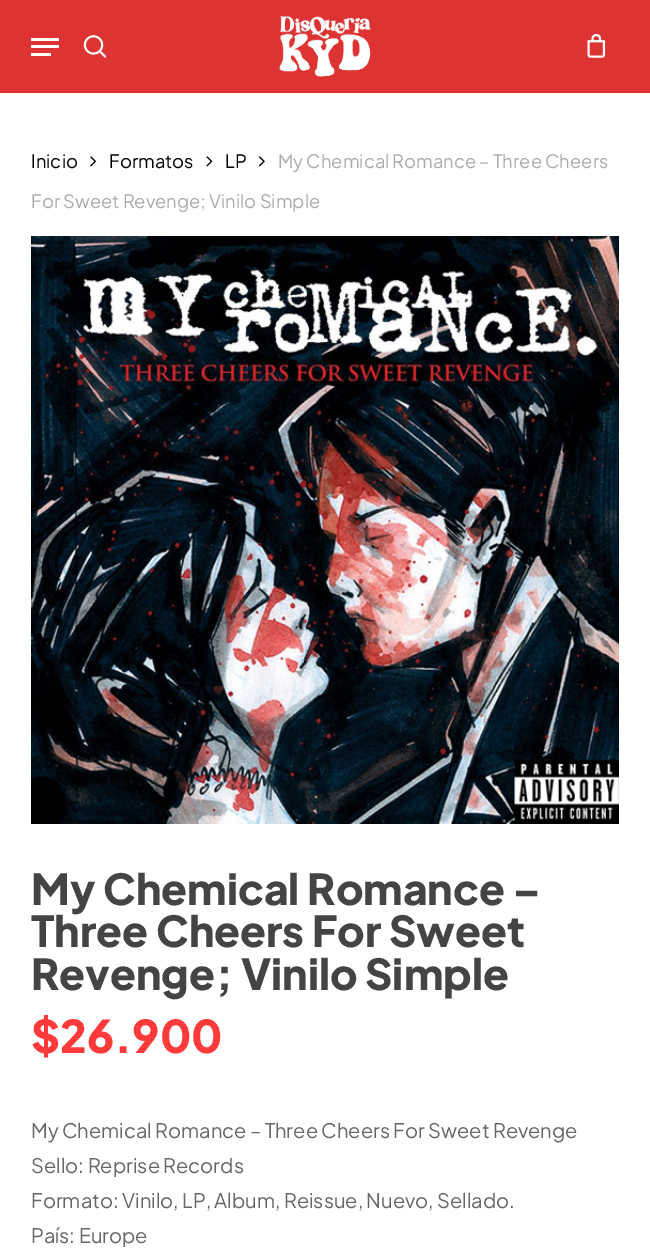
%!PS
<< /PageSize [650 1256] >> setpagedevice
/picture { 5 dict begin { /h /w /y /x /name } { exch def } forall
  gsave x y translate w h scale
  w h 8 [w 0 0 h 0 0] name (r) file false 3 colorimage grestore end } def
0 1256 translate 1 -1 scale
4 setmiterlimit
1 setgray
0 0 650 1256 rectfill
0.867 0.2 0.2 setrgbcolor
0 0 650 93 rectfill
(img1.rgb) 279 16 92 61 picture
1 setgray
31 38 28 3 rectfill
31 53 20 3 rectfill
31 45 28 3 rectfill
(img2.rgb) 83 35 24 23 picture
(img3.rgb) 587 33 19 25 picture
/PlusJakartaSans-Regular [18.4 0 0 -18.4 0 0] selectfont
0 setgray
31 168 moveto (Inicio) show
(img4.rgb) 90 156 7 11 picture
109 168 moveto (Formatos) show
(img5.rgb) 206 156 7 11 picture
225 168 moveto (LP) show
(img6.rgb) 258 156 7 11 picture
0.671 setgray
278 168 moveto (My Chemical Romance – Three Cheers) show
31 208 moveto (For Sweet Revenge; Vinilo Simple) show
(img7.rgb) 31 236 588 588 picture
/PlusJakartaSans-ExtraBold [42.5 0 0 -42.5 0 0] selectfont
0.267 setgray
31 905 moveto (My Chemical Romance –) show
31 947 moveto (Three Cheers For Sweet) show
31 990 moveto (Revenge; Vinilo Simple) show
/PlusJakartaSans-ExtraBold [45 0 0 -45 0 0] selectfont
1 0.227 0.227 setrgbcolor
31 1053 moveto ($26.900) show
/PlusJakartaSans-Regular [20 0 0 -20 0 0] selectfont
0.404 setgray
31 1138 moveto (My Chemical Romance – Three Cheers For Sweet Revenge) show
31 1173 moveto (Sello: Reprise Records) show
31 1208 moveto (Formato: Vinilo, LP, Album, Reissue, Nuevo, Sellado.) show
31 1243 moveto (País: Europe) show
showpage
